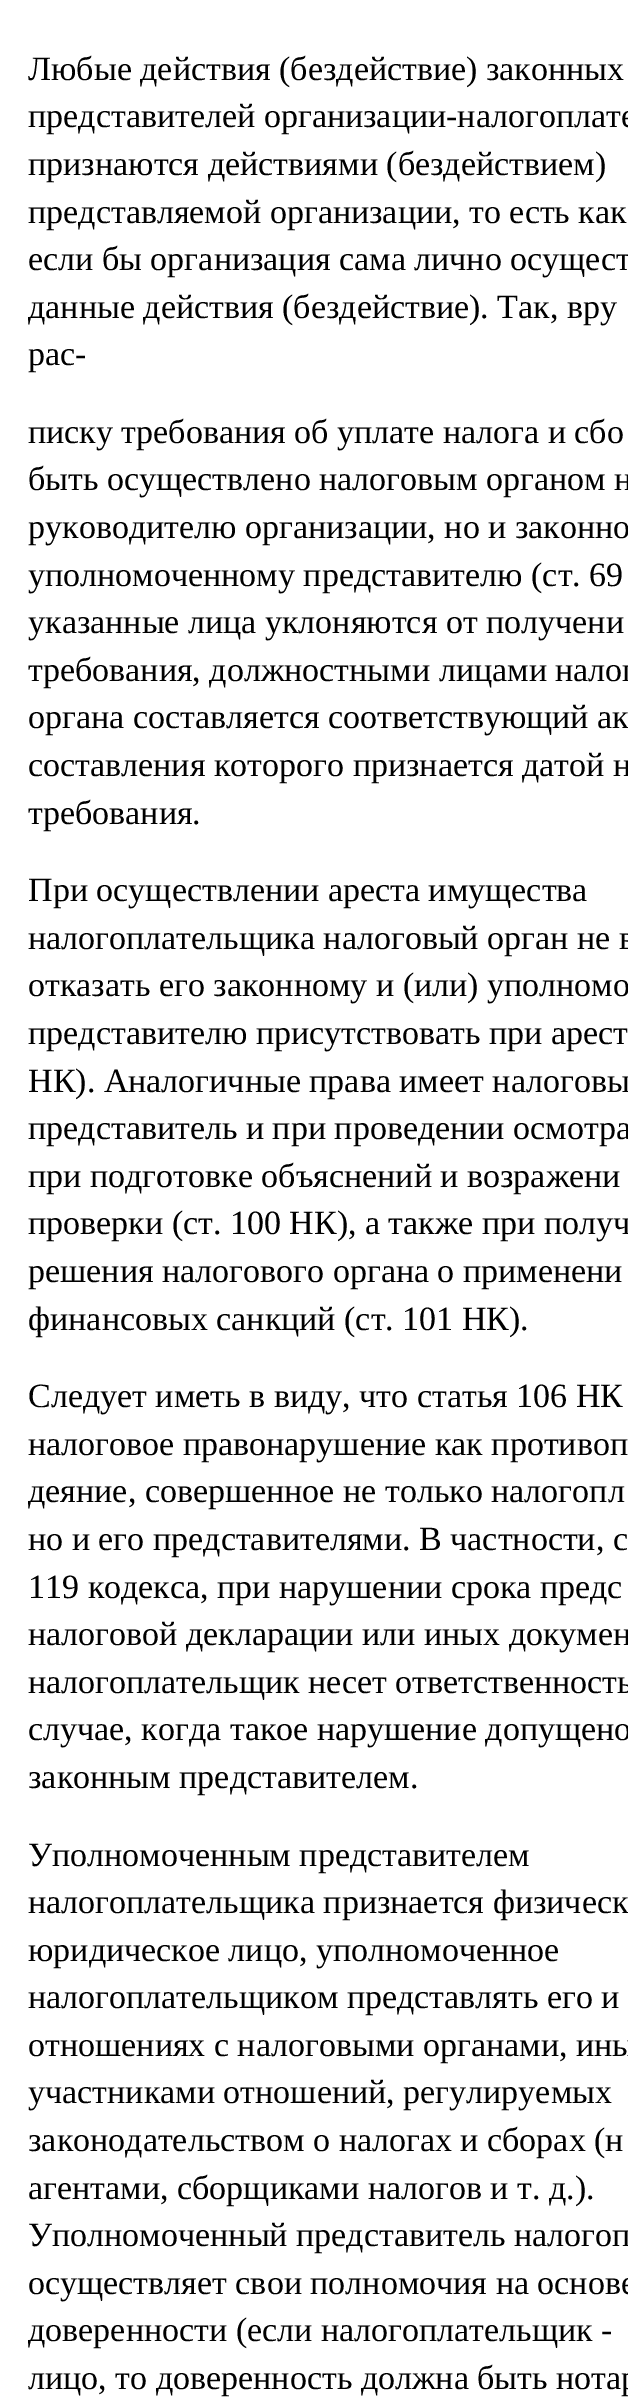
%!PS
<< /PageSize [628 2397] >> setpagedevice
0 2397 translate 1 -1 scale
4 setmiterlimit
1 setgray
0 0 628 2397 rectfill
/LiberationSerif-Regular [34 0 0 -34 0 0] selectfont
0 setgray
28 80 moveto (Любые действия \(бездействие\) законных) show
28 127 moveto (представителей организации-налогоплате) show
28 175 moveto (признаются действиями \(бездействием\)) show
28 223 moveto (представляемой организации, то есть как) show
28 270 moveto (если бы организация сама лично осущест) show
28 318 moveto (данные действия \(бездействие\). Так, вру) show
28 365 moveto (рас-) show
28 443 moveto (писку требования об уплате налога и сбо) show
28 490 moveto (быть осуществлено налоговым органом н) show
28 538 moveto (руководителю организации, но и законно) show
28 586 moveto (уполномоченному представителю \(ст. 69) show
28 633 moveto (указанные лица уклоняются от получени) show
28 681 moveto (требования, должностными лицами налог) show
28 728 moveto (органа составляется соответствующий ак) show
28 776 moveto (составления которого признается датой н) show
28 824 moveto (требования.) show
28 901 moveto (При осуществлении ареста имущества) show
28 949 moveto (налогоплательщика налоговый орган не в) show
28 996 moveto (отказать его законному и \(или\) уполномо) show
28 1044 moveto (представителю присутствовать при арест) show
28 1092 moveto (НК\). Аналогичные права имеет налоговы) show
28 1139 moveto (представитель и при проведении осмотра) show
28 1187 moveto (при подготовке объяснений и возражени) show
28 1234 moveto (проверки \(ст. 100 НК\), а также при получ) show
28 1282 moveto (решения налогового органа о применени) show
28 1330 moveto (финансовых санкций \(ст. 101 НК\).) show
28 1407 moveto (Следует иметь в виду, что статья 106 НК) show
28 1455 moveto (налоговое правонарушение как противоп) show
28 1502 moveto (деяние, совершенное не только налогопл) show
28 1550 moveto (но и его представителями. В частности, с) show
28 1598 moveto (119 кодекса, при нарушении срока предс) show
28 1645 moveto (налоговой декларации или иных докумен) show
28 1693 moveto (налогоплательщик несет ответственность) show
28 1740 moveto (случае, когда такое нарушение допущено) show
28 1788 moveto (законным представителем.) show
28 1866 moveto (Уполномоченным представителем) show
28 1913 moveto (налогоплательщика признается физическ) show
28 1961 moveto (юридическое лицо, уполномоченное) show
28 2008 moveto (налогоплательщиком представлять его и) show
28 2056 moveto (отношениях с налоговыми органами, ины) show
28 2103 moveto (участниками отношений, регулируемых) show
28 2151 moveto (законодательством о налогах и сборах \(н) show
28 2199 moveto (агентами, сборщиками налогов и т. д.\).) show
28 2246 moveto (Уполномоченный представитель налогоп) show
28 2294 moveto (осуществляет свои полномочия на основе) show
28 2341 moveto (доверенности \(если налогоплательщик -) show
28 2389 moveto (лицо, то доверенность должна быть нотар) show
showpage
